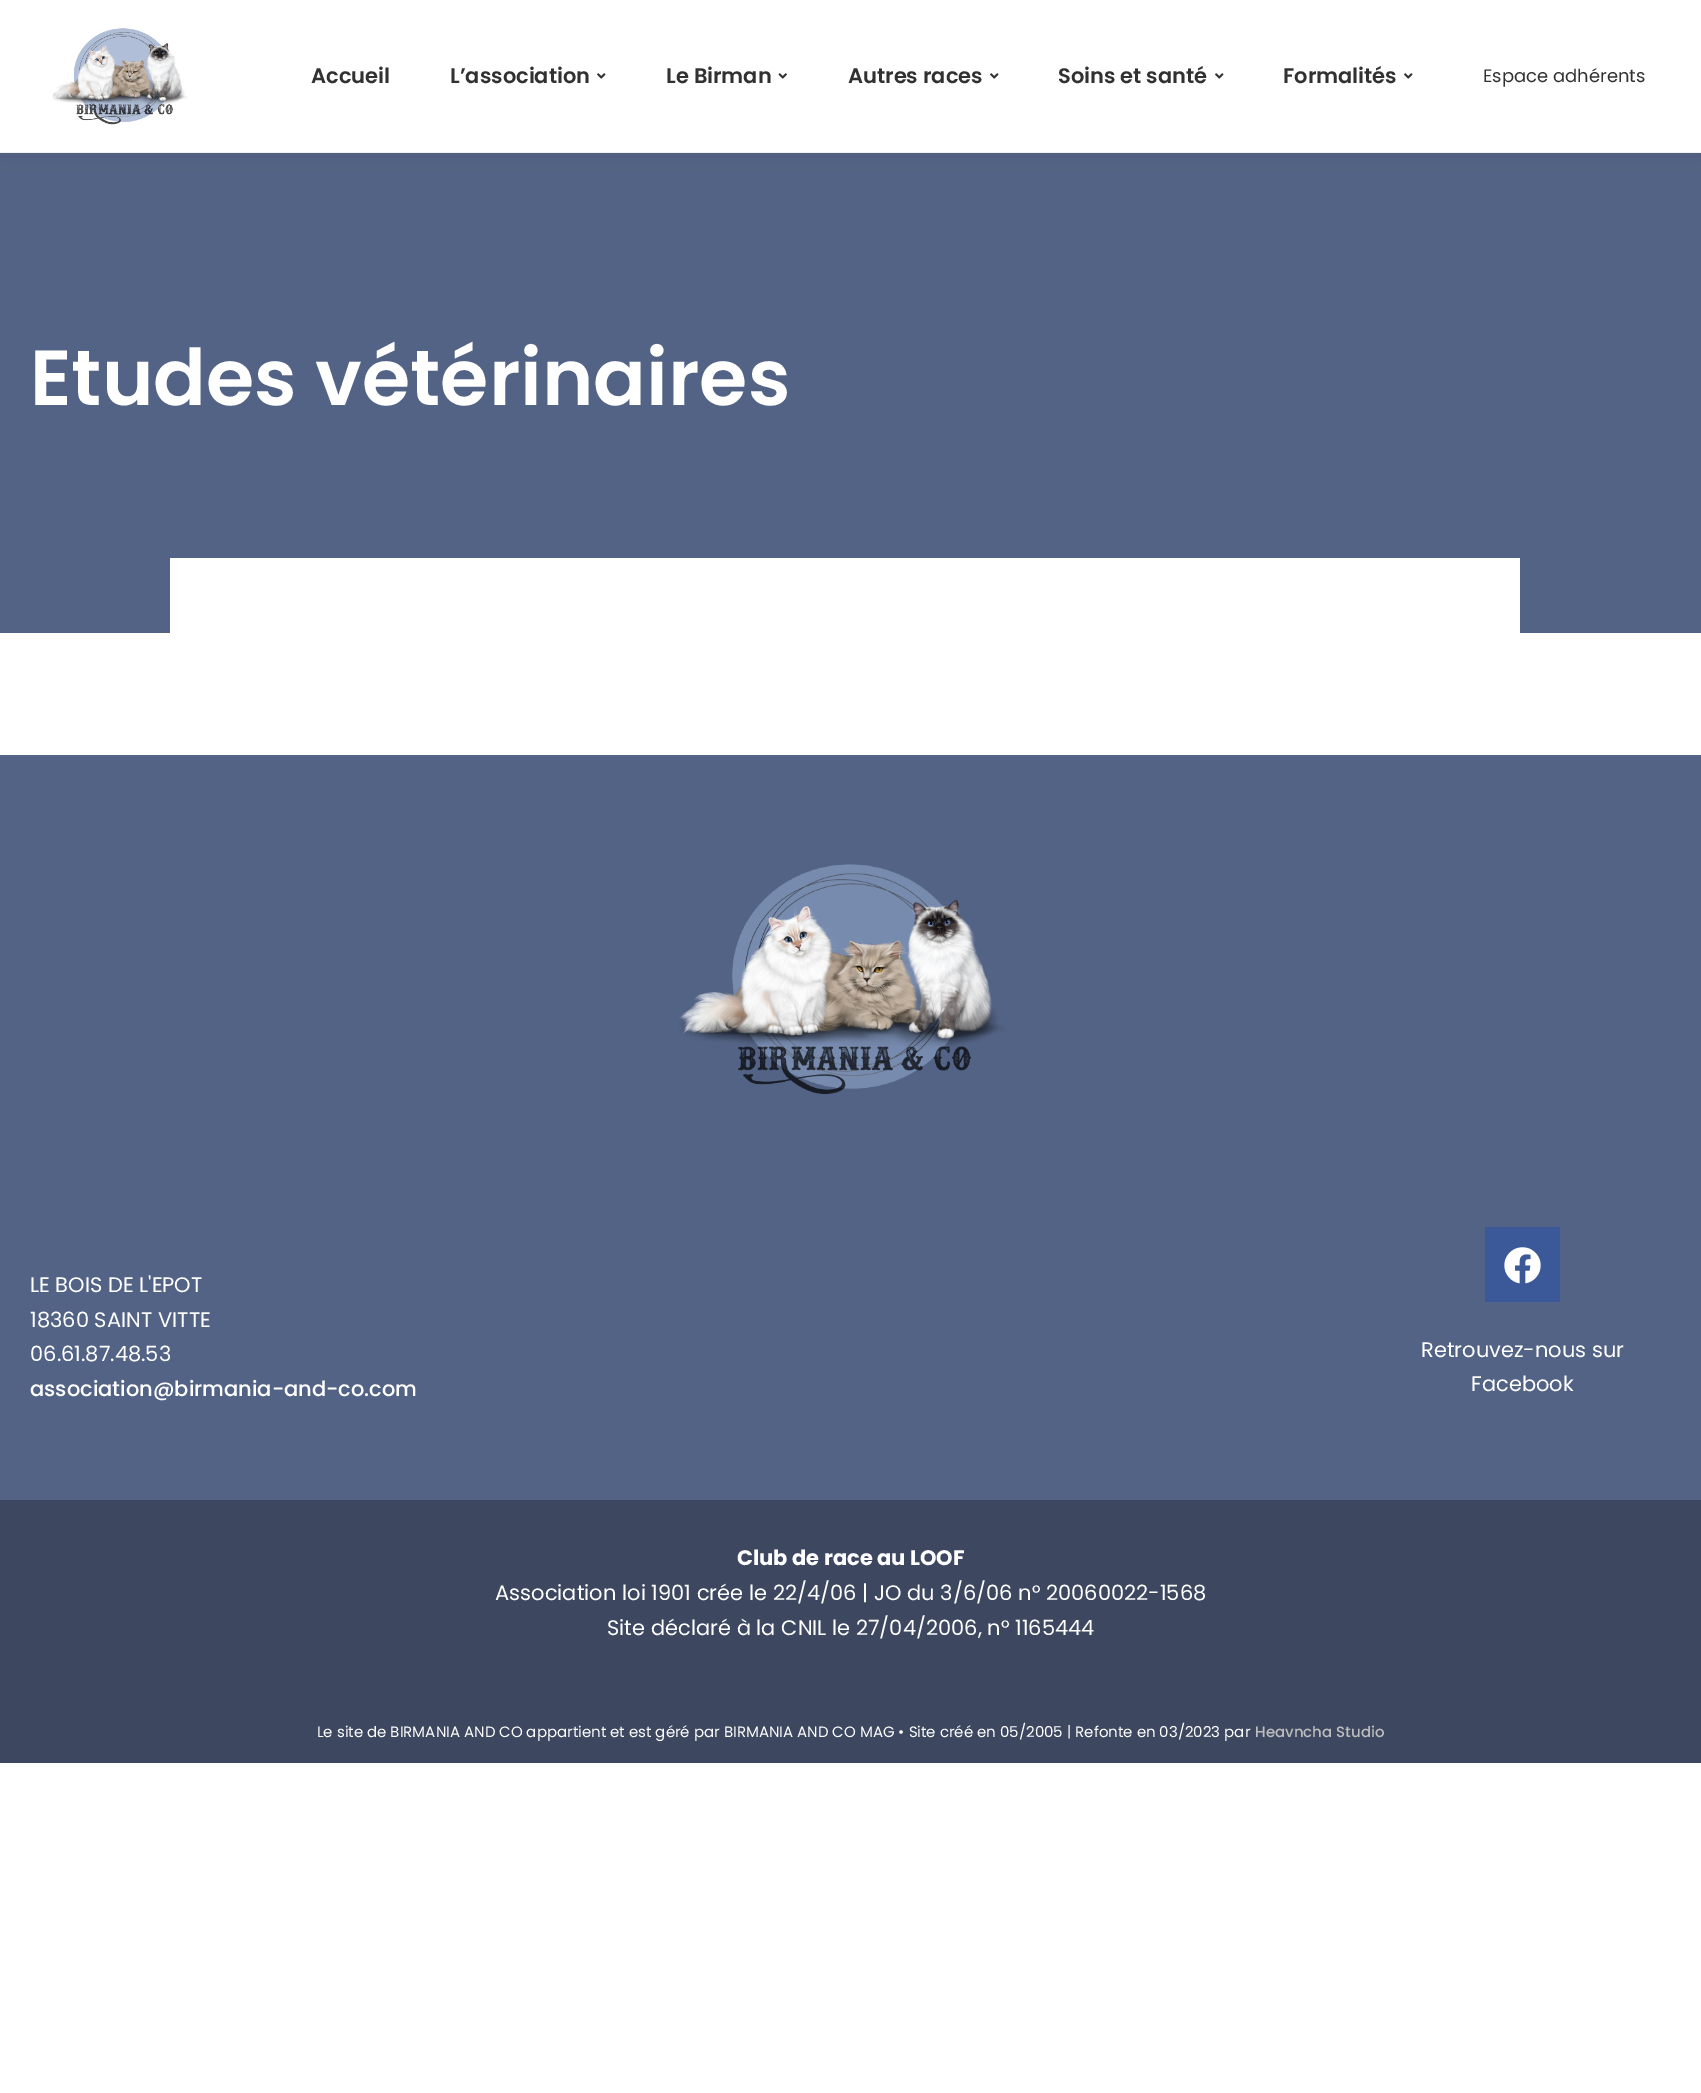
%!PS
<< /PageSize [1701 2093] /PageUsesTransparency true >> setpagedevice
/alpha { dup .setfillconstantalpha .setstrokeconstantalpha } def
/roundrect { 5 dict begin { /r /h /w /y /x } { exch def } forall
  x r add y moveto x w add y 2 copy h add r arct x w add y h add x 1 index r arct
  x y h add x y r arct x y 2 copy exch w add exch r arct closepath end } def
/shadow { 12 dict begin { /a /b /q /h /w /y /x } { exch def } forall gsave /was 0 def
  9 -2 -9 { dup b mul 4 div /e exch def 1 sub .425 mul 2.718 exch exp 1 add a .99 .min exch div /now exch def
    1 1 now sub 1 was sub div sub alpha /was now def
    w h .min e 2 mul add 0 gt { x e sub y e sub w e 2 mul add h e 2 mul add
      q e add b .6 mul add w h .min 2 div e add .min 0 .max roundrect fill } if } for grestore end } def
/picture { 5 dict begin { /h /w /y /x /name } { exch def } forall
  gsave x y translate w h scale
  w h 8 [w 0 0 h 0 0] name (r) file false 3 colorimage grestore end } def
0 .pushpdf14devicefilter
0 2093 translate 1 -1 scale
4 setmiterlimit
1 setgray
0 0 1701 2093 rectfill
0.325 0.388 0.522 setrgbcolor
0 153 1701 480 rectfill
0 setgray
0 0 1701 152 0 9 0.1 shadow
1 setgray
0 0 1701 152 rectfill
(img1.rgb) 52 28 136 97 picture
/Poppins-SemiBold [21 0 0 -21 0 0] selectfont
0.192 setgray
311 83 moveto (Accueil) show
450 83 moveto (L’association) show
(img2.rgb) 597 73 9 6 picture
666 83 moveto (Le Birman) show
(img3.rgb) 778 73 9 6 picture
848 83 moveto (Autres races) show
(img2.rgb) 990 73 9 6 picture
1058 83 moveto (Soins et santé) show
(img2.rgb) 1215 73 9 6 picture
1283 83 moveto (Formalités) show
(img2.rgb) 1404 73 9 6 picture
/Poppins-Regular [18 0 0 -18 0 0] selectfont
1483 82 moveto (Espace adhérents) show
/Poppins-SemiBold [78 0 0 -78 0 0] selectfont
1 setgray
30 405 moveto (Etudes vétérinaires) show
170 558 1350 75 rectfill
0.325 0.388 0.522 setrgbcolor
0 755 1701 745 rectfill
(img4.rgb) 679 864 327 231 picture
/Poppins-Regular [21 0 0 -21 0 0] selectfont
1 setgray
30 1292 moveto (LE BOIS DE L'EPOT) show
30 1327 moveto (18360 SAINT VITTE) show
30 1361 moveto (06.61.87.48.53) show
/Poppins-Medium [21 0 0 -21 0 0] selectfont
30 1396 moveto (association@birmania-and-co.com) show
0.231 0.349 0.596 setrgbcolor
1485 1227 75 75 rectfill
(img5.rgb) 1504 1247 37 37 picture
/Poppins-Regular [21 0 0 -21 0 0] selectfont
1 setgray
1421 1357 moveto (Retrouvez-nous sur) show
1471 1391 moveto (Facebook) show
0.239 0.282 0.376 setrgbcolor
0 1500 1701 263 rectfill
/Poppins-Bold [21 0 0 -21 0 0] selectfont
1 setgray
737 1565 moveto (Club de race au LOOF) show
/Poppins-Regular [21 0 0 -21 0 0] selectfont
495 1600 moveto (Association loi 1901 crée le 22/4/06 | JO du 3/6/06 n° 20060022-1568) show
607 1635 moveto (Site déclaré à la CNIL le 27/04/2006, n° 1165444) show
/Poppins-Regular [15 0 0 -15 0 0] selectfont
317 1737 moveto (Le site de BIRMANIA AND CO appartient et est géré par BIRMANIA AND CO MAG • Site créé en 05/2005 | Refonte en 03/2023 par) show
/Poppins-Medium [15 0 0 -15 0 0] selectfont
0.741 setgray
1255 1737 moveto (Heavncha Studio) show
.poppdf14devicefilter showpage
